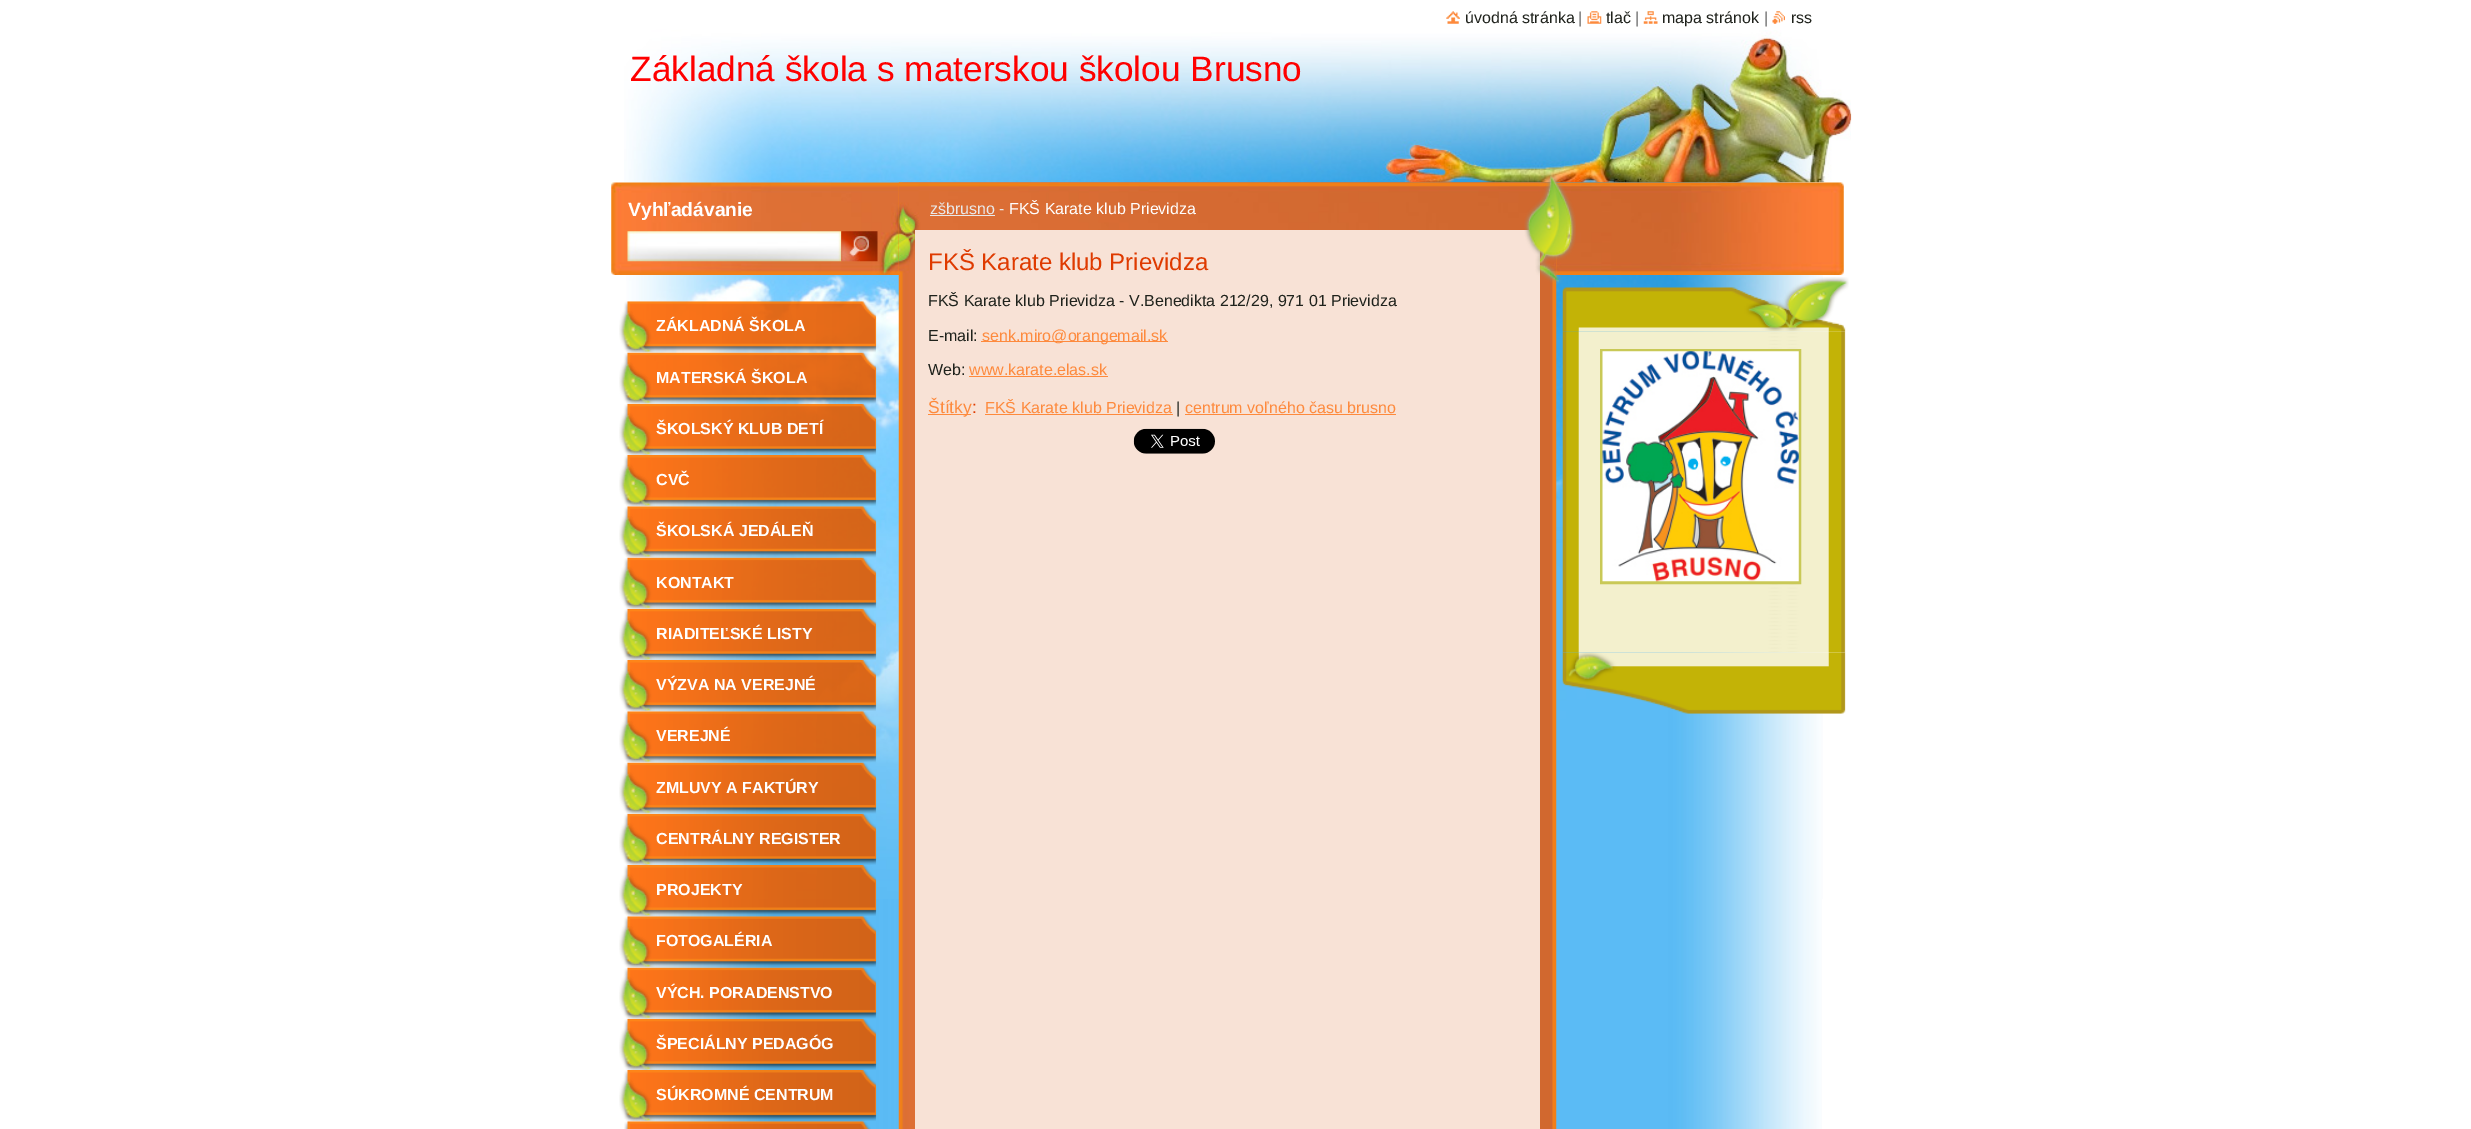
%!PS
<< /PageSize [2471 1129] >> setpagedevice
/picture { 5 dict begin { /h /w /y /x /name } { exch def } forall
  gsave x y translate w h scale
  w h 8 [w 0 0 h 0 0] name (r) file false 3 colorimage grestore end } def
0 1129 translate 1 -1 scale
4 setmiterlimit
1 setgray
0 0 2471 1129 rectfill
(img1.rgb) 628 899 1194 230 picture
(img2.rgb) 626 0 1197 899 picture
(img3.rgb) 1446 11 14 13 picture
/LiberationSans-Regular [16 0 0 -16 0 0] selectfont
0.122 0.133 0.11 setrgbcolor
1465 23 moveto (úvodná stránka) show
0.392 setgray
1578 23 moveto (|) show
(img4.rgb) 1587 11 15 13 picture
0.122 0.133 0.11 setrgbcolor
1606 23 moveto (tlač) show
0.392 setgray
1635 23 moveto (|) show
(img5.rgb) 1643 11 15 13 picture
0.122 0.133 0.11 setrgbcolor
1662 23 moveto (mapa stránok) show
0.392 setgray
1764 23 moveto (|) show
(img6.rgb) 1772 11 13 13 picture
0.122 0.133 0.11 setrgbcolor
1791 23 moveto (rss) show
(img7.rgb) 624 30 1228 153 picture
/LiberationSans-Regular [35.25 0 0 -35.25 0 0] selectfont
1 0 0 setrgbcolor
630 81 moveto (Základná škola s materskou školou Brusno) show
(img8.rgb) 611 182 1233 93 picture
/LiberationSans-Bold [19.25 0 0 -19.25 0 0] selectfont
1 setgray
628 216 moveto (Vyhľadávanie) show
(img9.rgb) 627 231 215 31 picture
(img10.rgb) 841 231 37 31 picture
(img11.rgb) 898 182 659 947 picture
(img12.rgb) 899 182 657 91 picture
/LiberationSans-Regular [16 0 0 -16 0 0] selectfont
0.914 setgray
930 214 moveto (zšbrusno -) show
930 215 65 1 rectfill
1 setgray
1009 214 moveto (FKŠ Karate klub Prievidza) show
0.973 0.886 0.839 setrgbcolor
915 230 625 899 rectfill
/LiberationSans-Regular [24 0 0 -24 0 0] selectfont
0.875 0.227 0 setrgbcolor
928 270 moveto (FKŠ Karate klub Prievidza) show
/LiberationSans-Regular [16 0 0 -16 0 0] selectfont
0.122 0.133 0.11 setrgbcolor
928 306 moveto (FKŠ Karate klub Prievidza - V.Benedikta 212/29, 971 01 Prievidza) show
928 341 moveto (E-mail:) show
0.996 0.541 0.239 setrgbcolor
981 341 187 1 rectfill
982 341 moveto (senk.miro@orangemail.sk) show
0.122 0.133 0.11 setrgbcolor
928 375 moveto (Web:) show
0.996 0.541 0.239 setrgbcolor
969 375 moveto (www.karate.elas.sk) show
969 376 139 1 rectfill
928 414 43 1 rectfill
/LiberationSans-Regular [17.5 0 0 -17.5 0 0] selectfont
928 413 moveto (Štítky) show
0.875 0.227 0 setrgbcolor
972 413 moveto (:) show
/LiberationSans-Regular [16 0 0 -16 0 0] selectfont
0.996 0.541 0.239 setrgbcolor
985 413 moveto (FKŠ Karate klub Prievidza) show
985 414 188 1 rectfill
0.122 0.133 0.11 setrgbcolor
1176 413 moveto (|) show
0.996 0.541 0.239 setrgbcolor
1185 413 moveto (centrum voľného času brusno) show
1185 414 211 1 rectfill
(img13.rgb) 1133 428 82 26 picture
(img32.rgb) 1562 277 287 55 picture
(img14.rgb) 1524 174 52 111 picture
(img15.rgb) 619 301 258 52 picture
/LiberationSans-Bold [16 0 0 -16 0 0] selectfont
1 setgray
656 331 moveto (ZÁKLADNÁ ŠKOLA) show
(img16.rgb) 619 352 258 52 picture
656 383 moveto (MATERSKÁ ŠKOLA) show
(img17.rgb) 619 403 258 52 picture
656 434 moveto (ŠKOLSKÝ KLUB DETÍ) show
(img18.rgb) 619 455 258 52 picture
656 485 moveto (CVČ) show
(img19.rgb) 619 506 258 52 picture
656 536 moveto (ŠKOLSKÁ JEDÁLEŇ) show
(img20.rgb) 619 557 258 52 picture
656 588 moveto (KONTAKT) show
(img21.rgb) 619 608 258 52 picture
656 639 moveto (RIADITEĽSKÉ LISTY) show
(img22.rgb) 619 660 258 52 picture
656 690 moveto (VÝZVA NA VEREJNÉ) show
(img23.rgb) 619 711 258 52 picture
656 741 moveto (VEREJNÉ) show
(img24.rgb) 619 762 258 52 picture
656 793 moveto (ZMLUVY A FAKTÚRY) show
(img25.rgb) 619 813 258 52 picture
656 844 moveto (CENTRÁLNY REGISTER) show
(img26.rgb) 619 865 258 52 picture
656 895 moveto (PROJEKTY) show
(img27.rgb) 619 916 258 52 picture
656 946 moveto (FOTOGALÉRIA) show
(img28.rgb) 619 967 258 52 picture
656 998 moveto (VÝCH. PORADENSTVO) show
(img29.rgb) 619 1018 258 52 picture
656 1049 moveto (ŠPECIÁLNY PEDAGÓG) show
(img30.rgb) 619 1070 258 52 picture
656 1100 moveto (SÚKROMNÉ CENTRUM) show
(img31.rgb) 624 1121 247 8 picture
(img33.rgb) 1562 331 284 322 picture
0.788 0.788 0.341 setrgbcolor
3 setlinewidth
1601.5 350.5 198 232 rectstroke
(img34.rgb) 1602 351 197 231 picture
(img35.rgb) 1562 652 284 62 picture
showpage
